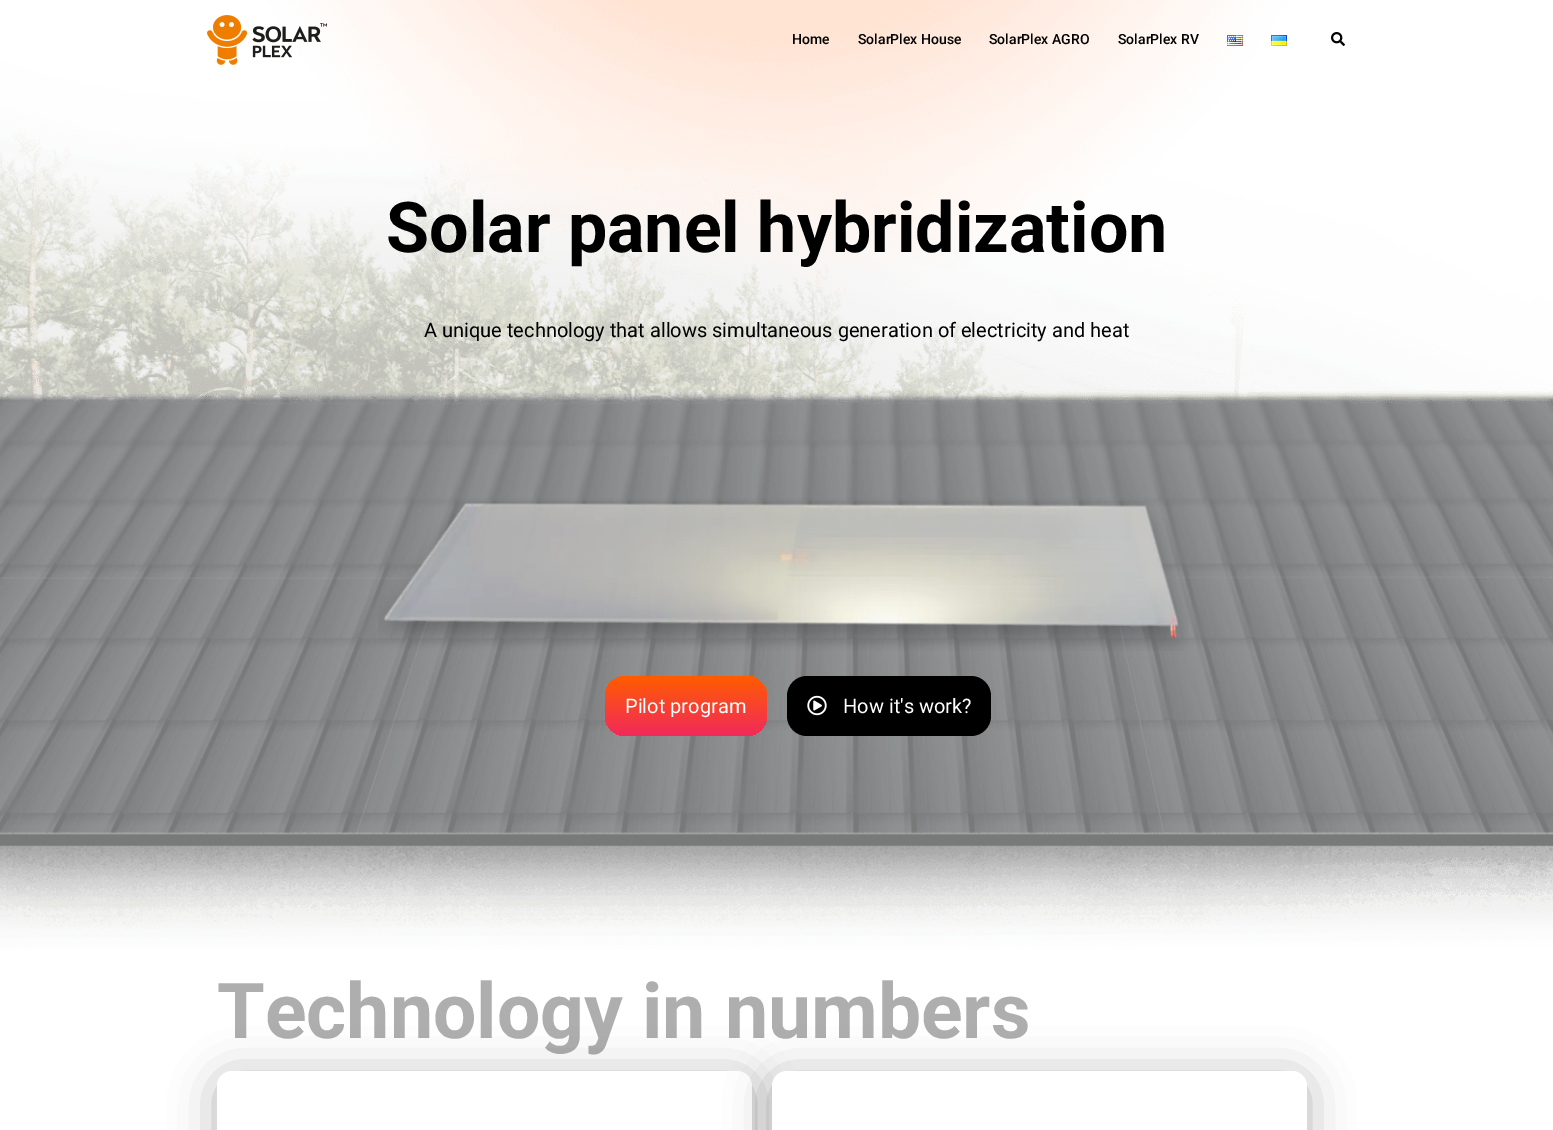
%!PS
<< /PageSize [1553 1130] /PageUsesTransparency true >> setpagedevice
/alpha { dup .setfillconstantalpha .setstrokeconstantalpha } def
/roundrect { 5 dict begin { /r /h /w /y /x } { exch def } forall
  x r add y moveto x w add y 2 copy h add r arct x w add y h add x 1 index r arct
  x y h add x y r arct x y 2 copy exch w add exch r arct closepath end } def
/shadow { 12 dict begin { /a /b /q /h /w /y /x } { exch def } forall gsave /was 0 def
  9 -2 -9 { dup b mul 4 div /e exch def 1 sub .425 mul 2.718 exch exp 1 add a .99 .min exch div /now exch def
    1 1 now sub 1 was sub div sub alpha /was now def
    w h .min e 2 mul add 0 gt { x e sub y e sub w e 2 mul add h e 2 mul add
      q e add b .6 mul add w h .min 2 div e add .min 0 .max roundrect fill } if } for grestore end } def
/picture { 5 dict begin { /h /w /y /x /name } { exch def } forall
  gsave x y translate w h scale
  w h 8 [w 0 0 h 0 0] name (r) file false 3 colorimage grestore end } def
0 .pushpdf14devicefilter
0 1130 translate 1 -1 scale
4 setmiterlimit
1 setgray
0 0 1553 1130 rectfill
(img5.rgb) 0 0 1553 949 picture
(img1.rgb) 207 15 120 50 picture
/Roboto-Medium [14 0 0 -14 0 0] selectfont
0 setgray
792 44 moveto (Home) show
858 44 moveto (SolarPlex House) show
989 44 moveto (SolarPlex AGRO) show
1118 44 moveto (SolarPlex RV) show
(img2.rgb) 1227 35 16 11 picture
(img3.rgb) 1271 35 16 11 picture
(img4.rgb) 1331 32 14 14 picture
/Roboto-Bold [70 0 0 -70 0 0] selectfont
386 252 moveto (Solar panel hybridization) show
/Roboto-Regular [20 0 0 -20 0 0] selectfont
424 337 moveto (A unique technology that allows simultaneous generation of electricity and heat) show
(img6.rgb) 378 501 811 150 picture
gsave 605 676 162 60 20 roundrect clip newpath
<< /ShadingType 2 /ColorSpace /DeviceRGB /Coords [686 676 686 736] /Extend [true true] /Function << /FunctionType 2 /Domain [0 1] /C0 [1 0.361 0] /C1 [0.949 0.161 0.357] /N 1 >> >> shfill grestore
1 setgray
625 713 moveto (Pilot program) show
0 setgray
787 676 204 60 20 roundrect fill
(img7.rgb) 807 695 20 21 picture
1 setgray
843 713 moveto (How it's work?) show
/Roboto-Bold [77 0 0 -77 0 0] selectfont
0.682 setgray
217 1038 moveto (Technology in numbers) show
0 setgray
217 1076 535 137 15 22.5 0.3 shadow
1 setgray
217 1071 535 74 15 roundrect fill
0 setgray
772 1076 535 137 15 22.5 0.3 shadow
1 setgray
772 1071 535 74 15 roundrect fill
.poppdf14devicefilter showpage
